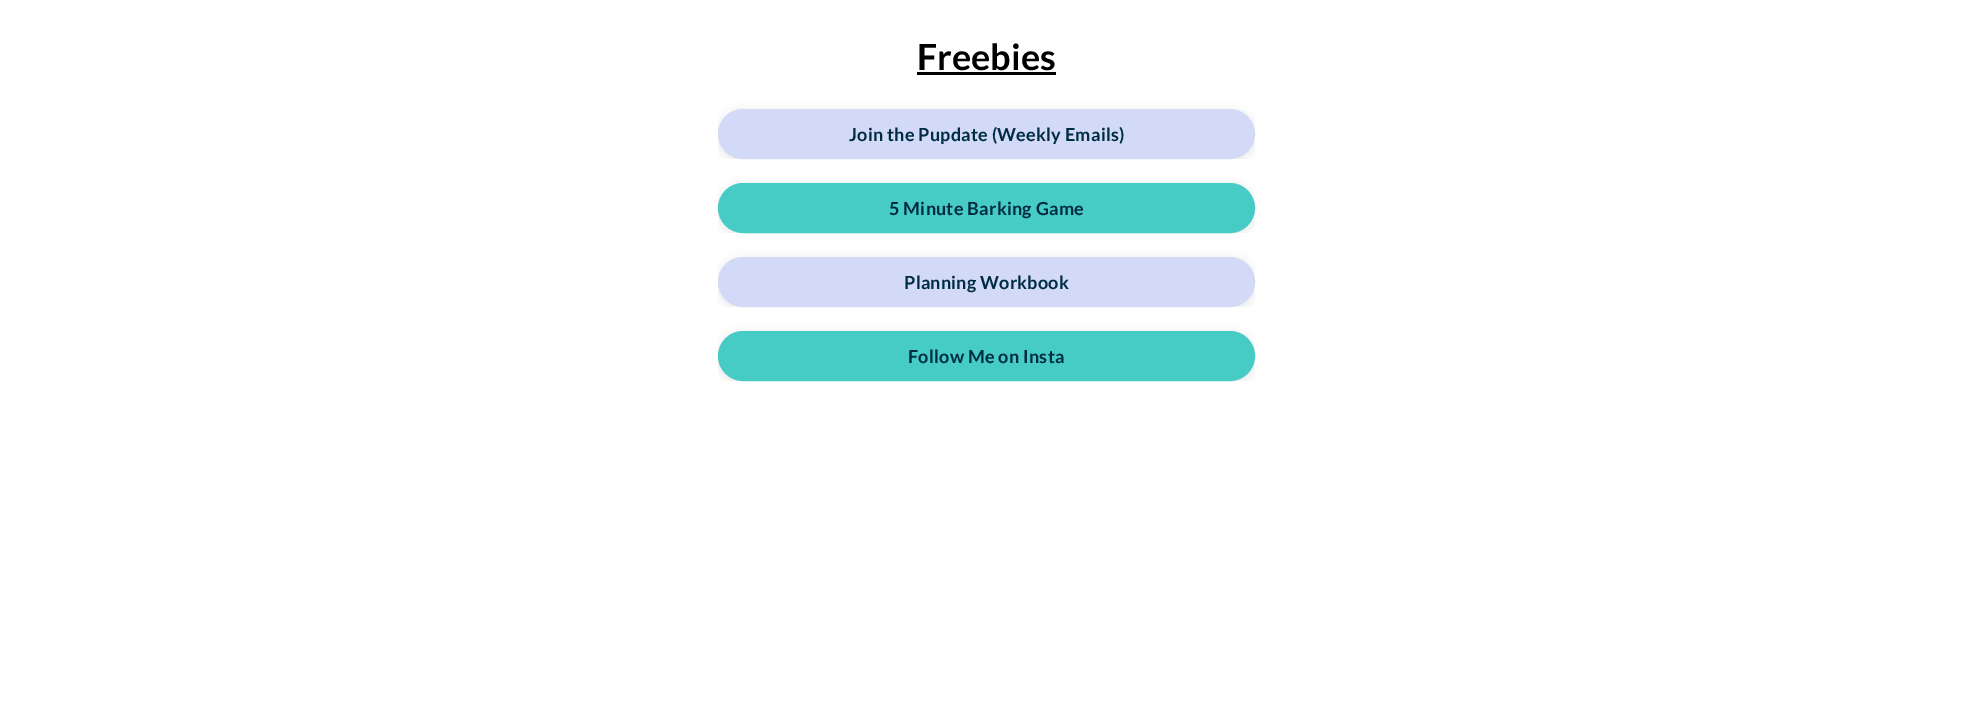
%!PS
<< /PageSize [1973 702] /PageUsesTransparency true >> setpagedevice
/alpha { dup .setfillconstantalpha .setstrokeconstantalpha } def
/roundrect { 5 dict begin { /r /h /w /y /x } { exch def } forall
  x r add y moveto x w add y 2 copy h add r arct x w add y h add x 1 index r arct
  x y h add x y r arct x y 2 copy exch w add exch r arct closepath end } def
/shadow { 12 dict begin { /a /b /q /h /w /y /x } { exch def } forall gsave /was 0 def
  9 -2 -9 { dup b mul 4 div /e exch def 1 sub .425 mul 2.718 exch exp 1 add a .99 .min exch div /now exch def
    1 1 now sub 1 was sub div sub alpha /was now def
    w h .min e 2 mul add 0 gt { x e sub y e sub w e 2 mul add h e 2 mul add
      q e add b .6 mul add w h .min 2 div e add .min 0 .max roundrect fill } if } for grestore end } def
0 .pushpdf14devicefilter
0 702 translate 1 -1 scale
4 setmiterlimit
1 setgray
0 0 1973 702 rectfill
/Lato-Bold [36 0 0 -36 0 0] selectfont
0 setgray
917 70 moveto (Freebies) show
917 72 139 3 rectfill
gsave
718 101 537 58 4 roundrect clip newpath
718 111 537 50 25 5 0.1 shadow
grestore
0.827 0.855 0.969 setrgbcolor
719 110 535 48 24 roundrect gsave fill grestore
2 setlinewidth
stroke
/Lato-Bold [18 0 0 -18 0 0] selectfont
0 0.173 0.259 setrgbcolor
849 141 moveto 0.25 0 (Join the Pupdate \(Weekly Emails\)) ashow
gsave
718 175 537 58 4 roundrect clip newpath
0 setgray
718 185 537 50 25 5 0.1 shadow
grestore
0.275 0.8 0.773 setrgbcolor
719 184 535 48 24 roundrect gsave fill grestore
stroke
0 0.173 0.259 setrgbcolor
889 215 moveto 0.25 0 (5 Minute Barking Game) ashow
gsave
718 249 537 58 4 roundrect clip newpath
0 setgray
718 259 537 50 25 5 0.1 shadow
grestore
0.827 0.855 0.969 setrgbcolor
719 258 535 48 24 roundrect gsave fill grestore
stroke
0 0.173 0.259 setrgbcolor
904 289 moveto 0.25 0 (Planning Workbook) ashow
gsave
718 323 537 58 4 roundrect clip newpath
0 setgray
718 333 537 50 25 5 0.1 shadow
grestore
0.275 0.8 0.773 setrgbcolor
719 332 535 48 24 roundrect gsave fill grestore
stroke
0 0.173 0.259 setrgbcolor
908 363 moveto 0.25 0 (Follow Me on Insta) ashow
.poppdf14devicefilter showpage
